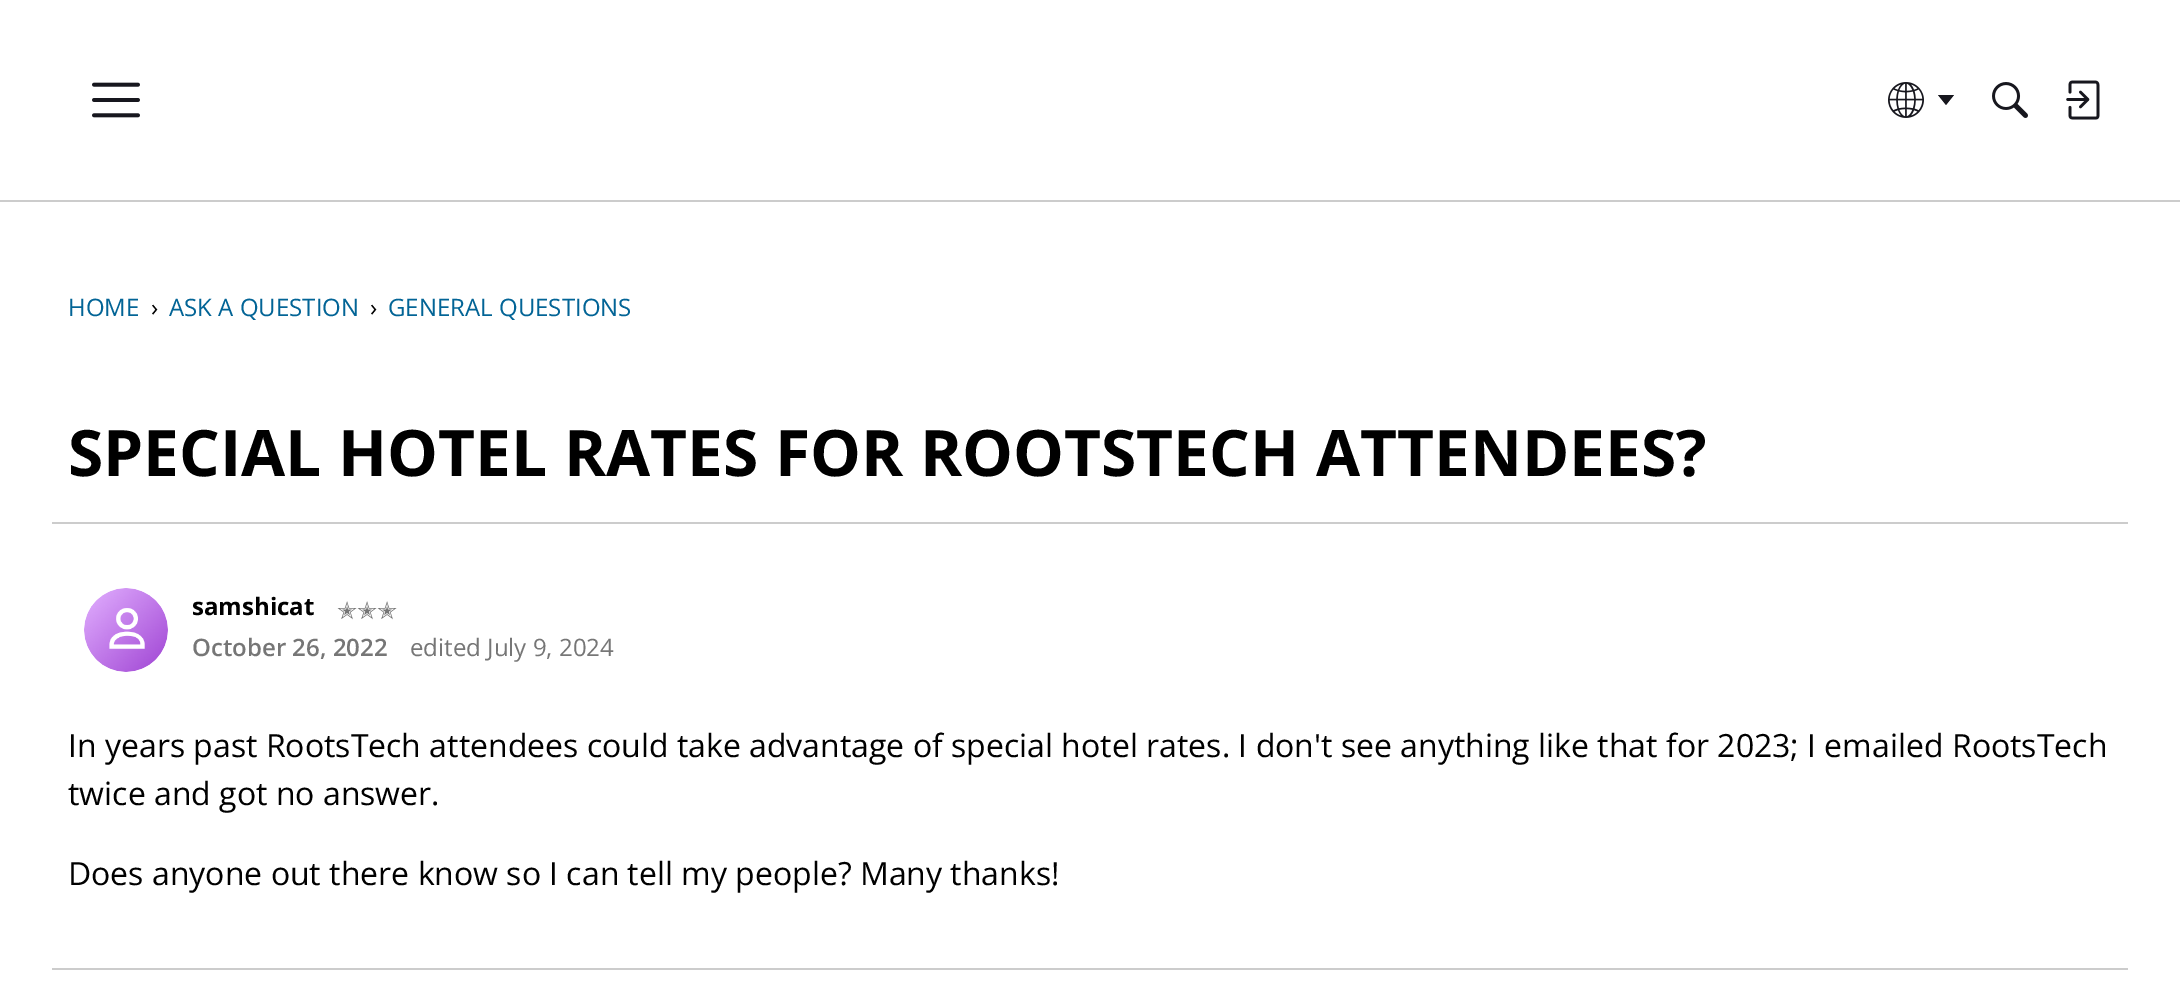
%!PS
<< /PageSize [2180 989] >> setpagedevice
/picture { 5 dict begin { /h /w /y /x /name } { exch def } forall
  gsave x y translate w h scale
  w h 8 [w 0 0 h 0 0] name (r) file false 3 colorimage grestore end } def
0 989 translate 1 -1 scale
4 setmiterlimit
1 setgray
0 0 2180 989 rectfill
0.8 setgray
0 200 2180 2 rectfill
(img1.rgb) 92 82 48 36 picture
(img2.rgb) 1888 82 36 36 picture
0.09 0.09 0.118 setrgbcolor
newpath 1938 95 moveto 1954 95 lineto 1946 105 lineto closepath fill
(img3.rgb) 1992 82 36 36 picture
(img4.rgb) 2066 80 34 40 picture
/OpenSans-Regular [24 0 0 -24 0 0] selectfont
0.008 0.392 0.588 setrgbcolor
68 316 moveto (HOME) show
0 setgray
151 316 moveto (›) show
0.008 0.392 0.588 setrgbcolor
169 316 moveto (ASK A QUESTION) show
0 setgray
370 316 moveto (›) show
0.008 0.392 0.588 setrgbcolor
388 316 moveto (GENERAL QUESTIONS) show
/OpenSans-Bold [64 0 0 -64 0 0] selectfont
0 setgray
68 476 moveto (SPECIAL HOTEL RATES FOR ROOTSTECH ATTENDEES?) show
0.8 setgray
52 522 2076 2 rectfill
(img5.rgb) 84 588 84 84 picture
/OpenSans-Bold [24 0 0 -24 0 0] selectfont
0 setgray
192 615 moveto (samshicat) show
/DejaVuSans-Regular [24 0 0 -24 0 0] selectfont
0.463 setgray
337 619 moveto (✭✭✭) show
/OpenSans-SemiBold [24 0 0 -24 0 0] selectfont
192 656 moveto (October 26, 2022) show
/OpenSans-Regular [24 0 0 -24 0 0] selectfont
410 656 moveto (edited July 9, 2024) show
/OpenSans-Regular [32 0 0 -32 0 0] selectfont
0 setgray
68 757 moveto (In years past RootsTech attendees could take advantage of special hotel rates. I don't see anything like that for 2023; I emailed RootsTech) show
68 805 moveto (twice and got no answer.) show
68 885 moveto (Does anyone out there know so I can tell my people? Many thanks!) show
0.8 setgray
52 968 2076 2 rectfill
showpage
